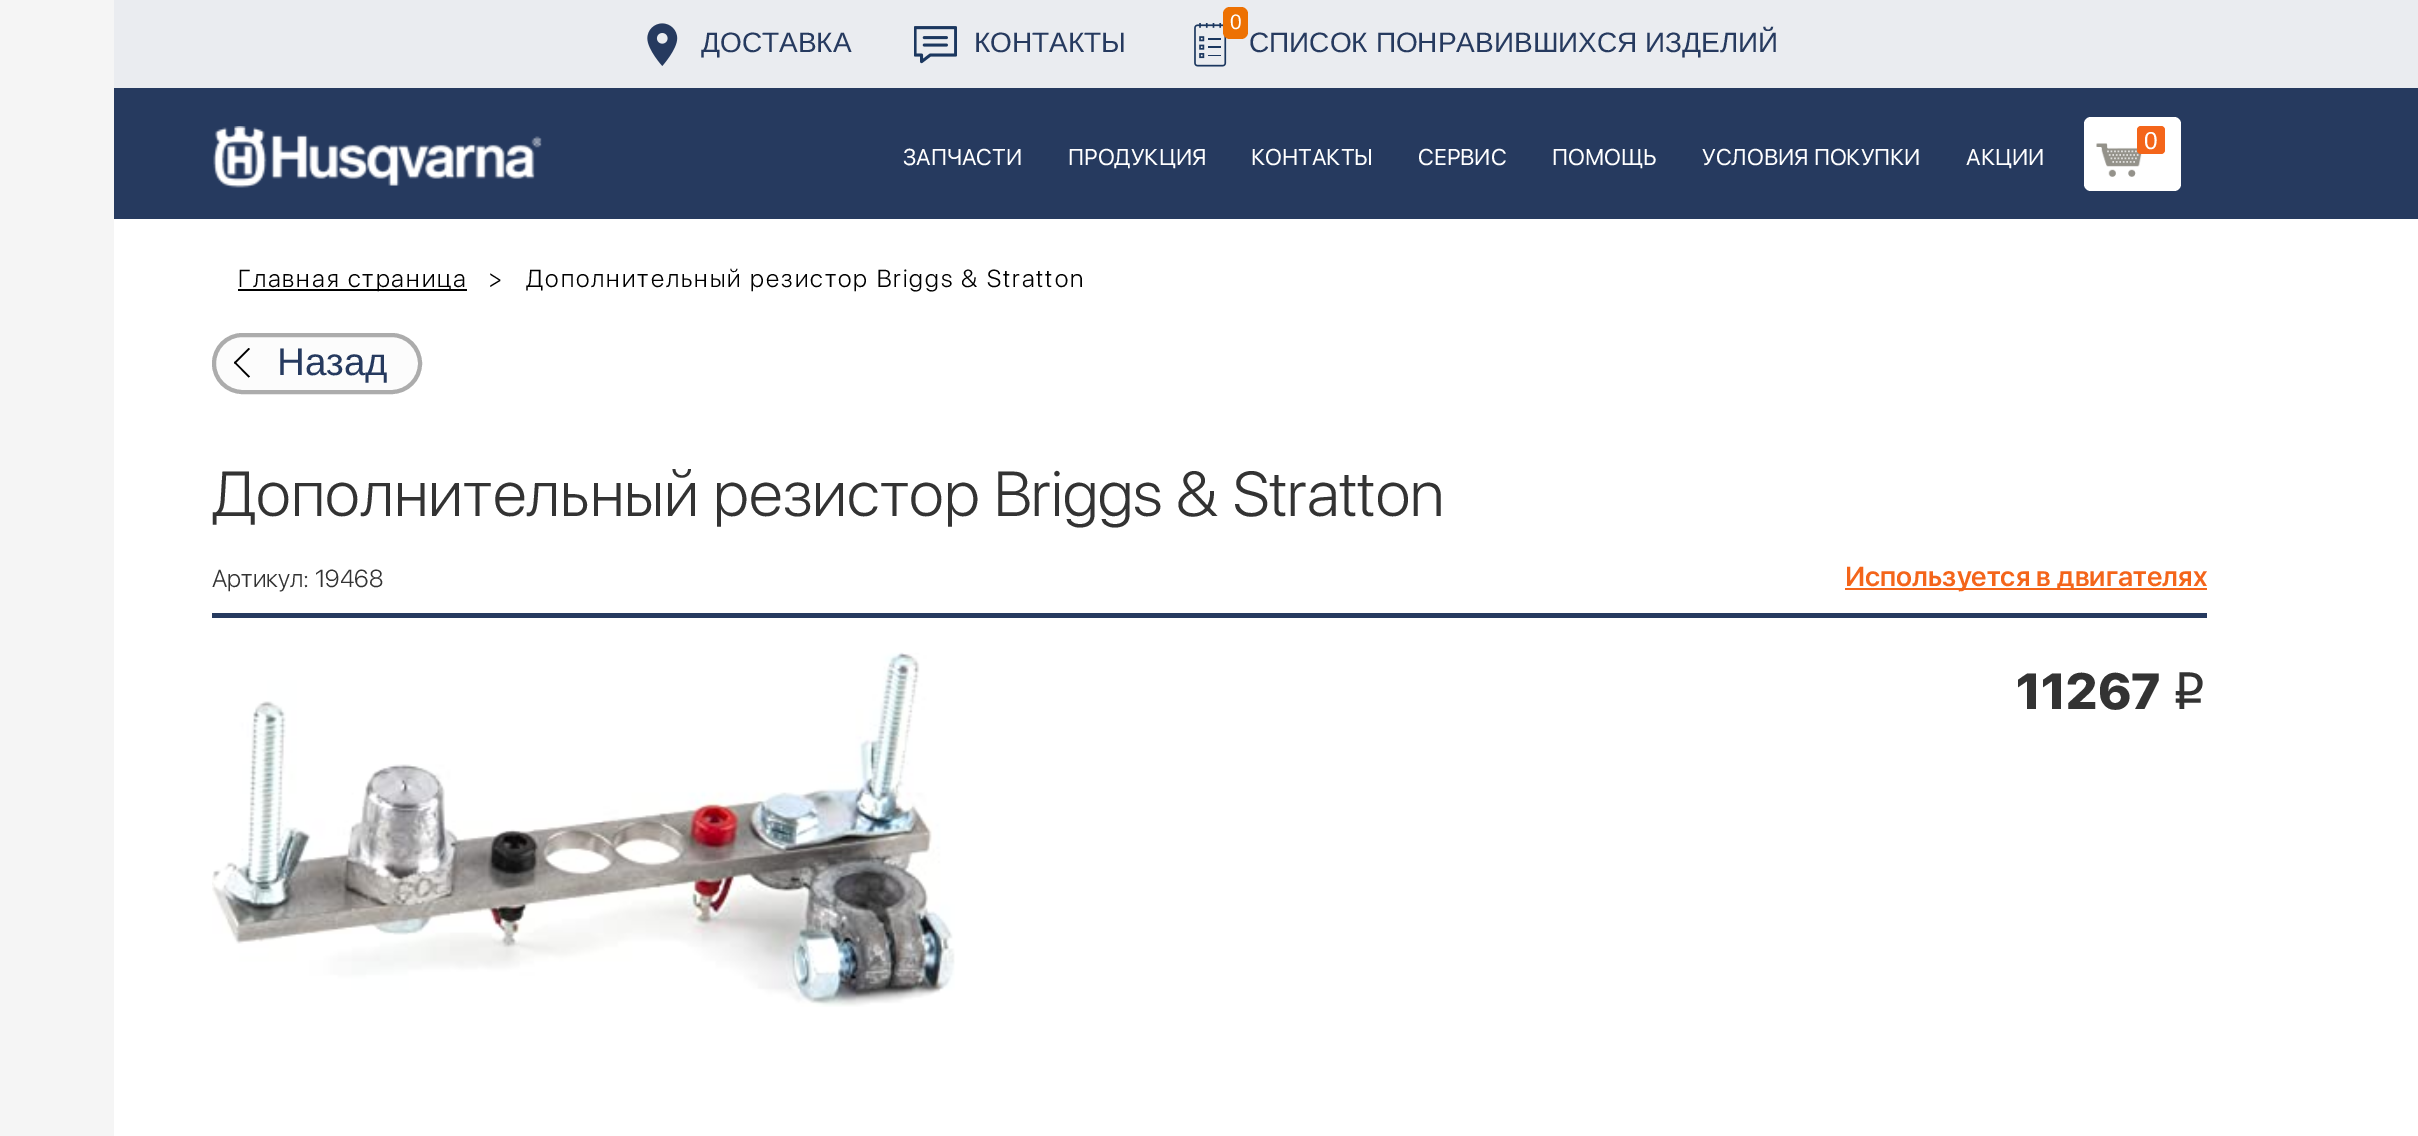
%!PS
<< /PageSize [2418 1136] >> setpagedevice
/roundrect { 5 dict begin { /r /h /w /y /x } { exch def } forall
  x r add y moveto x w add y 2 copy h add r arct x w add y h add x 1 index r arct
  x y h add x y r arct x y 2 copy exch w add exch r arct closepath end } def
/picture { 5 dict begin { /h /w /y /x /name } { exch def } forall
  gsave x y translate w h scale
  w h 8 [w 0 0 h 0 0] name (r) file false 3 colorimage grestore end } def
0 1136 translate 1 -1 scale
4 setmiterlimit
1 setgray
0 0 2418 1136 rectfill
0.961 setgray
0 0 114 1136 rectfill
0.918 0.925 0.941 setrgbcolor
114 0 2304 88 rectfill
(img1.rgb) 647 23 31 43 picture
/LiberationSans-Regular [28 0 0 -28 0 0] selectfont
0.149 0.227 0.373 setrgbcolor
701 52 moveto (ДОСТАВКА) show
(img2.rgb) 914 26 43 38 picture
974 52 moveto (КОНТАКТЫ) show
(img3.rgb) 1194 23 33 44 picture
0.929 0.443 0.008 setrgbcolor
1223 7 25 32 7 roundrect fill
/LiberationSans-Regular [21 0 0 -21 0 0] selectfont
1 setgray
1230 29 moveto (0) show
/LiberationSans-Regular [28 0 0 -28 0 0] selectfont
0.149 0.227 0.373 setrgbcolor
1249 52 moveto (СПИСОК ПОНРАВИВШИХСЯ ИЗДЕЛИЙ) show
114 88 2304 131 rectfill
(img4.rgb) 213 126 329 62 picture
1 setgray
2084 117 97 74 7 roundrect fill
(img5.rgb) 2096 143 46 34 picture
0.957 0.396 0.102 setrgbcolor
2137 126 28 28 4 roundrect fill
/LiberationSans-Regular [24.5 0 0 -24.5 0 0] selectfont
1 setgray
2144 149 moveto (0) show
/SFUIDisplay-Regular [22.75 0 0 -22.75 0 0] selectfont
903 165 moveto (ЗАПЧАСТИ) show
1068 165 moveto (ПРОДУКЦИЯ) show
1251 165 moveto (КОНТАКТЫ) show
1418 165 moveto (СЕРВИС) show
1552 165 moveto (ПОМОЩЬ) show
1702 165 moveto (УСЛОВИЯ ПОКУПКИ) show
1966 165 moveto (АКЦИИ) show
0 setgray
238 289 229 2 rectfill
/SFUIDisplay-Light [24.5 0 0 -24.5 0 0] selectfont
238 287 moveto 1.95 0 (Главная страница) ashow
488 287 moveto 1.95 0 (>) ashow
526 287 moveto 1.95 0 (Дополнительный резистор Briggs & Stratton) ashow
0.988 setgray
214 335 206 57 28.5 roundrect gsave fill grestore
0.675 setgray
4 setlinewidth
stroke
0 setgray
newpath 234 362.5 moveto 248.5 348 lineto 250 349 lineto 235 364 lineto closepath fill
newpath 234 362.5 moveto 235 361.5 lineto 250 376.5 lineto 248.5 377.5 lineto closepath fill
/LiberationSans-Regular [38.5 0 0 -38.5 0 0] selectfont
0.149 0.227 0.373 setrgbcolor
277 375 moveto (Назад) show
/SFUIDisplay-Light [63 0 0 -63 0 0] selectfont
0.2 setgray
212 516 moveto (Дополнительный резистор Briggs & Stratton) show
/SFUIDisplay-Light [24.5 0 0 -24.5 0 0] selectfont
212 587 moveto (Артикул: 19468) show
0.957 0.396 0.102 setrgbcolor
1845 588 362 2 rectfill
/SFUIDisplay-SemiBold [28 0 0 -28 0 0] selectfont
1845 586 moveto (Используется в двигателях) show
0.149 0.227 0.373 setrgbcolor
212 613 1995 5 rectfill
(img6.rgb) 212 652 743 355 picture
/SFUIDisplay-Black [52.5 0 0 -52.5 0 0] selectfont
0.2 setgray
2016 709 moveto (11267) show
/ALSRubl-Regular [52.5 0 0 -52.5 0 0] selectfont
2171 709 moveto (i) show
showpage
